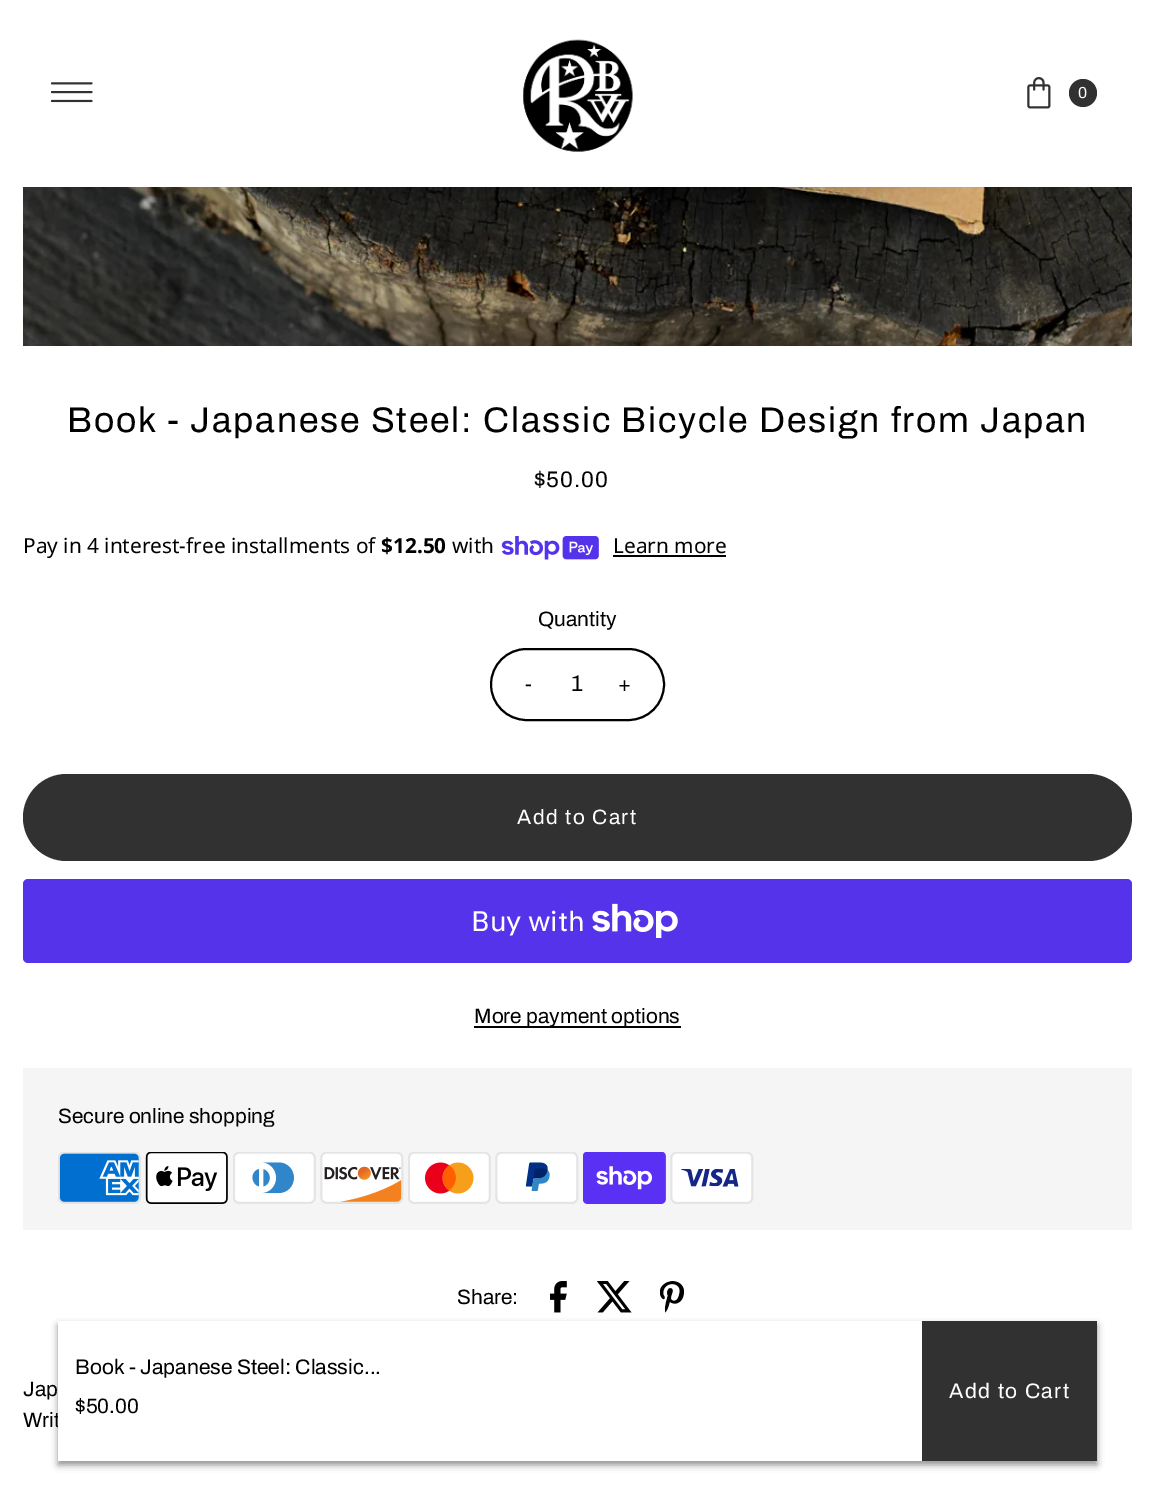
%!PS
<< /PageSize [1154 1495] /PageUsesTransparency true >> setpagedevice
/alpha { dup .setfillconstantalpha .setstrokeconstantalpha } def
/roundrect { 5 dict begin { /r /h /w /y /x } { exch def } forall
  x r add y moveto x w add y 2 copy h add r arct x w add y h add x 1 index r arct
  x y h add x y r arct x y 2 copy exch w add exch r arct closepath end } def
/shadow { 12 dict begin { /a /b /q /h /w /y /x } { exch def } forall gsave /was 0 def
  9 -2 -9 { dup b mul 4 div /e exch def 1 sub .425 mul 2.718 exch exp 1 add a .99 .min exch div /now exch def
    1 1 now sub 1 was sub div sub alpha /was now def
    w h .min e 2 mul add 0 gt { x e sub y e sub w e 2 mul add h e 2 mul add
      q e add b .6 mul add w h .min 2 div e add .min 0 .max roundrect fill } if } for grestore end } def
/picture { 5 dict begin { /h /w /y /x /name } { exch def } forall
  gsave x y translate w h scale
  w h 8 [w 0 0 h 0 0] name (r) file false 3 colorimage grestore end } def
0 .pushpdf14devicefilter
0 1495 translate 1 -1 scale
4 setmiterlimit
1 setgray
0 0 1154 1495 rectfill
(img1.rgb) 51 82 42 21 picture
(img2.rgb) 523 39 110 113 picture
(img3.rgb) 1027 77 24 32 picture
0.192 setgray
newpath 1083 93 14 0 360 arc closepath fill
/Archivo-Regular [16 0 0 -16 0 0] selectfont
1 setgray
1078 98 moveto (0) show
(img4.rgb) 23 187 1109 159 picture
/Archivo-Regular [35.7 0 0 -35.7 0 0] selectfont
0 setgray
67 432 moveto 1.8 0 (Book - Japanese Steel: Classic Bicycle Design from Japan) ashow
/Archivo-Regular [22.5 0 0 -22.5 0 0] selectfont
534 487 moveto 1 0 ($50.00) ashow
/NotoSans-Regular [20.8 0 0 -20.8 0 0] selectfont
23 553 moveto (Pay in 4 interest-free installments of) show
/NotoSans-Bold [20.8 0 0 -20.8 0 0] selectfont
381 553 moveto ($12.50) show
/NotoSans-Regular [20.8 0 0 -20.8 0 0] selectfont
452 553 moveto (with) show
(img5.rgb) 501 536 98 24 picture
613 553 moveto (Learn more) show
613 555 113 2 rectfill
/Archivo-Regular [20.8 0 0 -20.8 0 0] selectfont
538 626 moveto (Quantity) show
2 setlinewidth
491 649 173 71 35.5 roundrect stroke
525 691 moveto 1.5 0 (-) ashow
/Archivo-Regular [23 0 0 -23 0 0] selectfont
571 691 moveto (1) show
/Archivo-Regular [20.8 0 0 -20.8 0 0] selectfont
618 691 moveto 1.5 0 (+) ashow
0.192 setgray
23 774 1109 87 43.5 roundrect fill
1 setgray
517 824 moveto 1.5 0 (Add to Cart) ashow
0.329 0.2 0.922 setrgbcolor
23 879 1109 84 5 roundrect fill
/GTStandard-Regular [28 0 0 -28 0 0] selectfont
1 setgray
471 931 moveto (Buy with) show
(img6.rgb) 592 903 86 35 picture
0 setgray
474 1026 207 2 rectfill
/Archivo-Regular [20.8 0 0 -20.8 0 0] selectfont
474 1023 moveto (More payment options) show
0.961 setgray
23 1068 1109 162 rectfill
0 setgray
58 1123 moveto (Secure online shopping) show
(img7.rgb) 58 1152 83 52 picture
(img8.rgb) 145 1152 83 52 picture
(img9.rgb) 233 1152 83 52 picture
(img10.rgb) 320 1152 84 52 picture
(img11.rgb) 408 1152 83 52 picture
(img12.rgb) 495 1152 84 52 picture
(img13.rgb) 583 1152 83 52 picture
(img14.rgb) 670 1152 84 52 picture
457 1304 moveto (Share:) show
(img15.rgb) 550 1281 17 32 picture
(img16.rgb) 597 1281 35 32 picture
(img17.rgb) 660 1281 24 32 picture
23 1396 moveto (Jap) show
23 1427 moveto (Writ) show
0.133 setgray
58 1325 1039 140 0 3.5 0.5 shadow
1 setgray
58 1321 864 140 rectfill
/Archivo-Regular [21 0 0 -21 0 0] selectfont
0 setgray
75 1374 moveto (Book - Japanese Steel: Classic...) show
/Archivo-Regular [20.8 0 0 -20.8 0 0] selectfont
75 1413 moveto ($50.00) show
0.192 setgray
922 1321 175 140 rectfill
/Archivo-Regular [21 0 0 -21 0 0] selectfont
1 setgray
949 1398 moveto 1.5 0 (Add to Cart) ashow
.poppdf14devicefilter showpage
